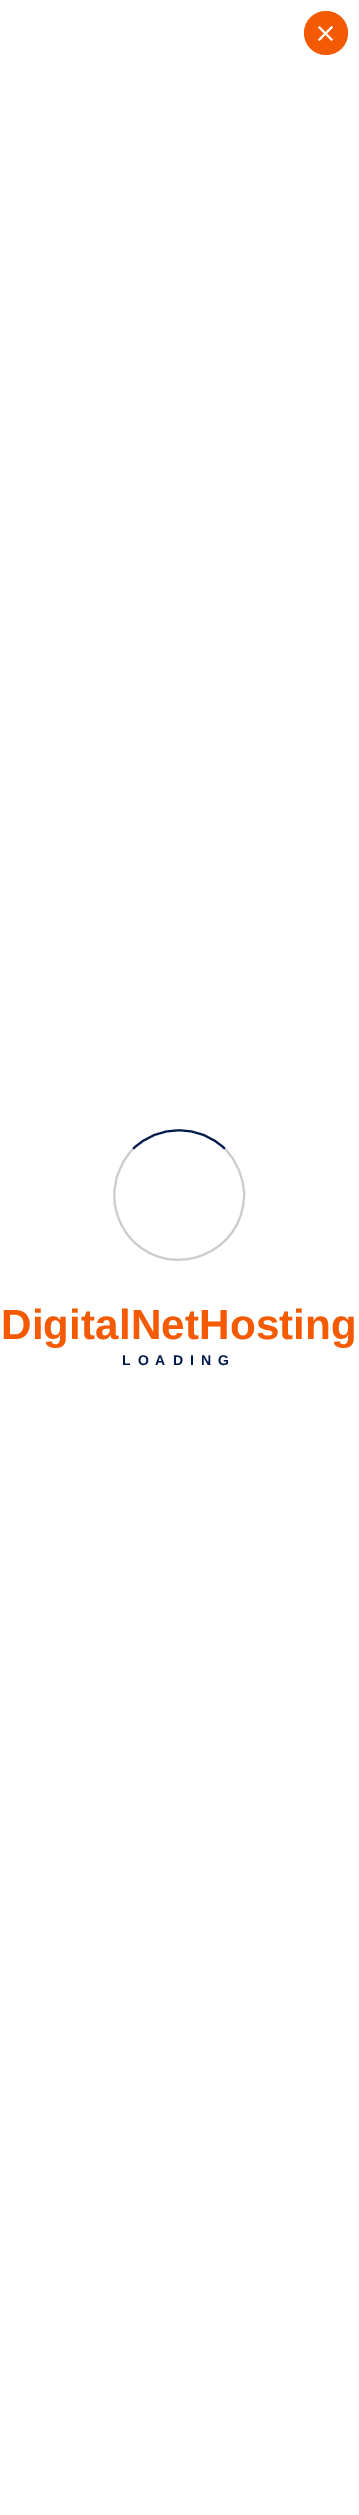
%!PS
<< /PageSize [359 2515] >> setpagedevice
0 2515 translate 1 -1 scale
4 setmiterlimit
1 setgray
0 0 359 2515 rectfill
0.953 0.353 0.008 setrgbcolor
newpath 326 33 22 0 360 arc closepath fill
1 setgray
newpath 318 39.5 moveto 331.5 26 lineto 333 27.5 lineto 319.5 41 lineto closepath fill
newpath 331.5 41 moveto 318 27.5 lineto 319.5 26 lineto 333 39.5 lineto closepath fill
0 0.098 0.298 setrgbcolor
2 setlinewidth
newpath 133 1149 moveto 158 1124 200 1124 225 1149 curveto stroke
0.8 setgray
newpath 225 1149 moveto 237 1161 244 1178 244 1195 curveto 244 1252.5 173.5 1281.5 133 1241 curveto 124 1232 118 1220.5 115.5 1207.5 curveto 111 1186.5 118 1164.5 133 1149 curveto stroke
/LiberationSans-Bold [42.25 0 0 -42.25 0 0] selectfont
0.953 0.353 0.008 setrgbcolor
1 1339 moveto 0.1 0 (DigitalNetHosting) ashow
/LiberationSans-Bold [14 0 0 -14 0 0] selectfont
0 0.098 0.298 setrgbcolor
122 1365 moveto 7 0 (LOADING) ashow
showpage
